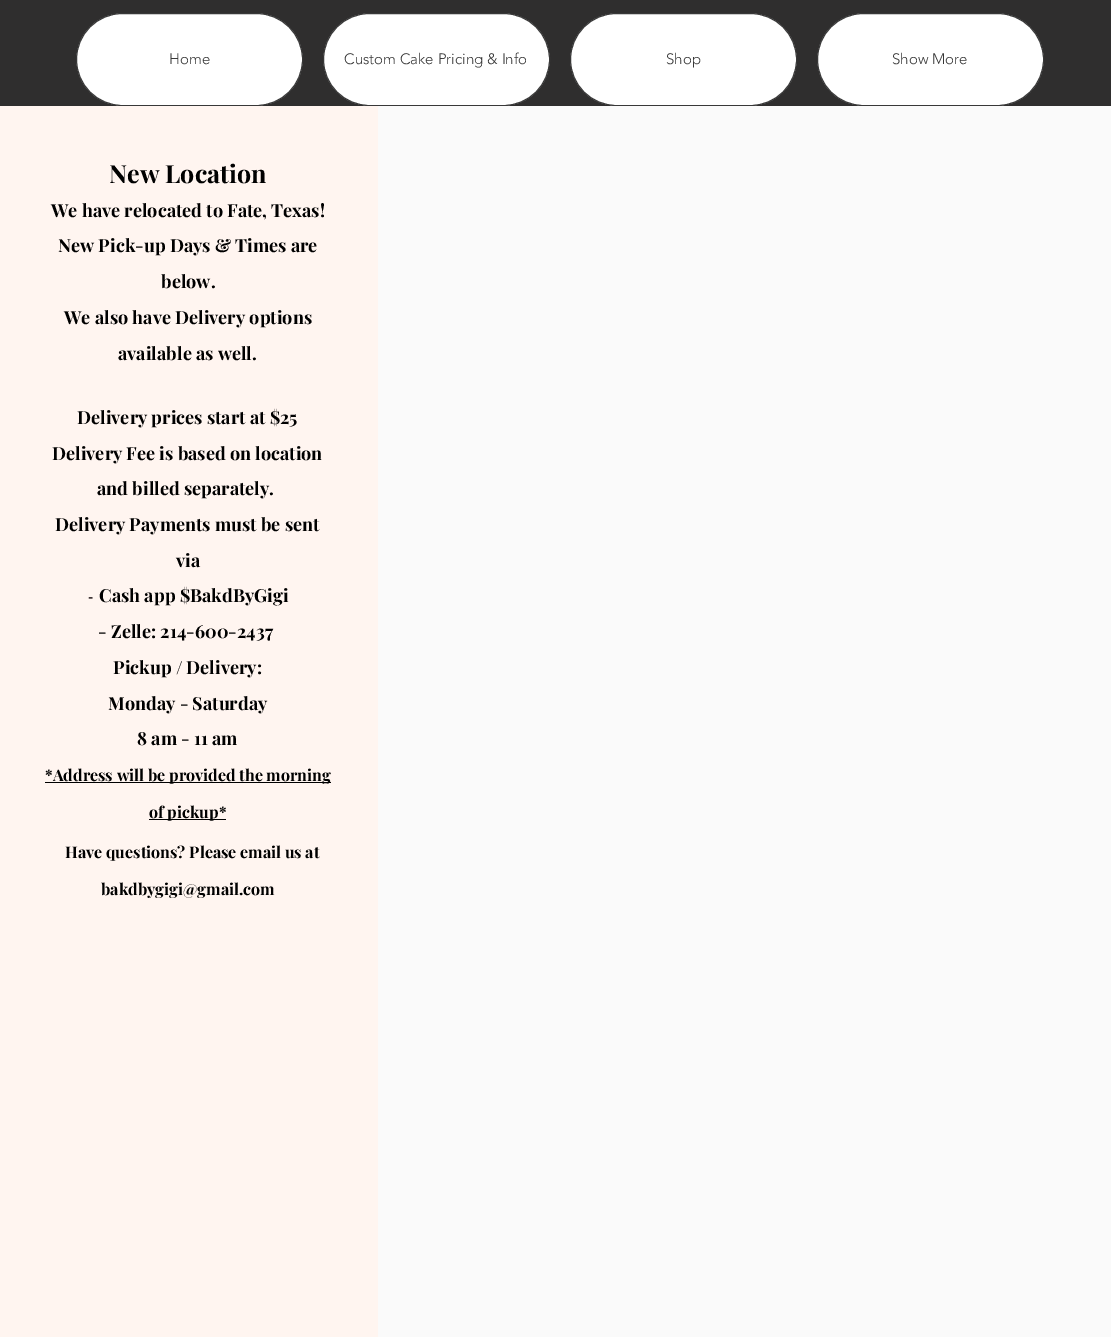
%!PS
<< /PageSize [1111 1337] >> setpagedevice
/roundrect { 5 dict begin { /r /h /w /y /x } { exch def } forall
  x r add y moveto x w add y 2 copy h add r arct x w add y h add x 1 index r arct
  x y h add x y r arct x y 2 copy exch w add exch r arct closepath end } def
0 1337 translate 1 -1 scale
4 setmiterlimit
0.184 0.18 0.18 setrgbcolor
0 0 1111 1337 rectfill
1 setgray
76.5 13.5 226 92 46 roundrect gsave fill grestore
0.22 setgray
stroke
/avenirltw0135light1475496-Light [15 0 0 -15 0 0] selectfont
169 64 moveto (Home) show
1 setgray
323.5 13.5 226 92 46 roundrect gsave fill grestore
0.22 setgray
stroke
344 64 moveto (Custom Cake Pricing & Info) show
1 setgray
570.5 13.5 226 92 46 roundrect gsave fill grestore
0.22 setgray
stroke
666 64 moveto (Shop) show
1 setgray
817.5 13.5 226 92 46 roundrect gsave fill grestore
0.22 setgray
stroke
892 64 moveto (Show More) show
1 0.961 0.941 setrgbcolor
0 106 378 1231 rectfill
/PlayfairDisplay-Bold [25 0 0 -25 0 0] selectfont
0 setgray
109 183 moveto (New Location) show
/PlayfairDisplay-Bold [18 0 0 -18 0 0] selectfont
51 217 moveto (We have relocated to Fate, Texas!) show
58 252 moveto (New Pick-up Days & Times are) show
161 288 moveto (below.) show
64 324 moveto (We also have Delivery options) show
118 360 moveto (available as well.) show
77 424 moveto (Delivery prices start at $25) show
52 460 moveto (Delivery Fee is based on location) show
97 495 moveto (and billed separately.) show
55 531 moveto (Delivery Payments must be sent) show
176 567 moveto (via) show
/Didot-Bold [18 0 0 -18 0 0] selectfont
0.251 0.212 0.216 setrgbcolor
87 602 moveto (-) show
/PlayfairDisplay-Bold [18 0 0 -18 0 0] selectfont
0 setgray
99 602 moveto (Cash app $BakdByGigi) show
98 638 moveto (- Zelle: 214-600-2437) show
113 674 moveto (Pickup / Delivery:) show
108 710 moveto (Monday - Saturday) show
137 745 moveto (8 am - 11 am) show
45 782 286 1 rectfill
/PlayfairDisplay-Bold [16 0 0 -16 0 0] selectfont
45 781 moveto (*Address will be provided the morning) show
149 819 77 1 rectfill
149 818 moveto (of pickup*) show
65 858 moveto (Have questions? Please email us at) show
101 895 moveto (bakdbygigi@gmail.com) show
0.98 setgray
378 106 733 1231 rectfill
showpage
